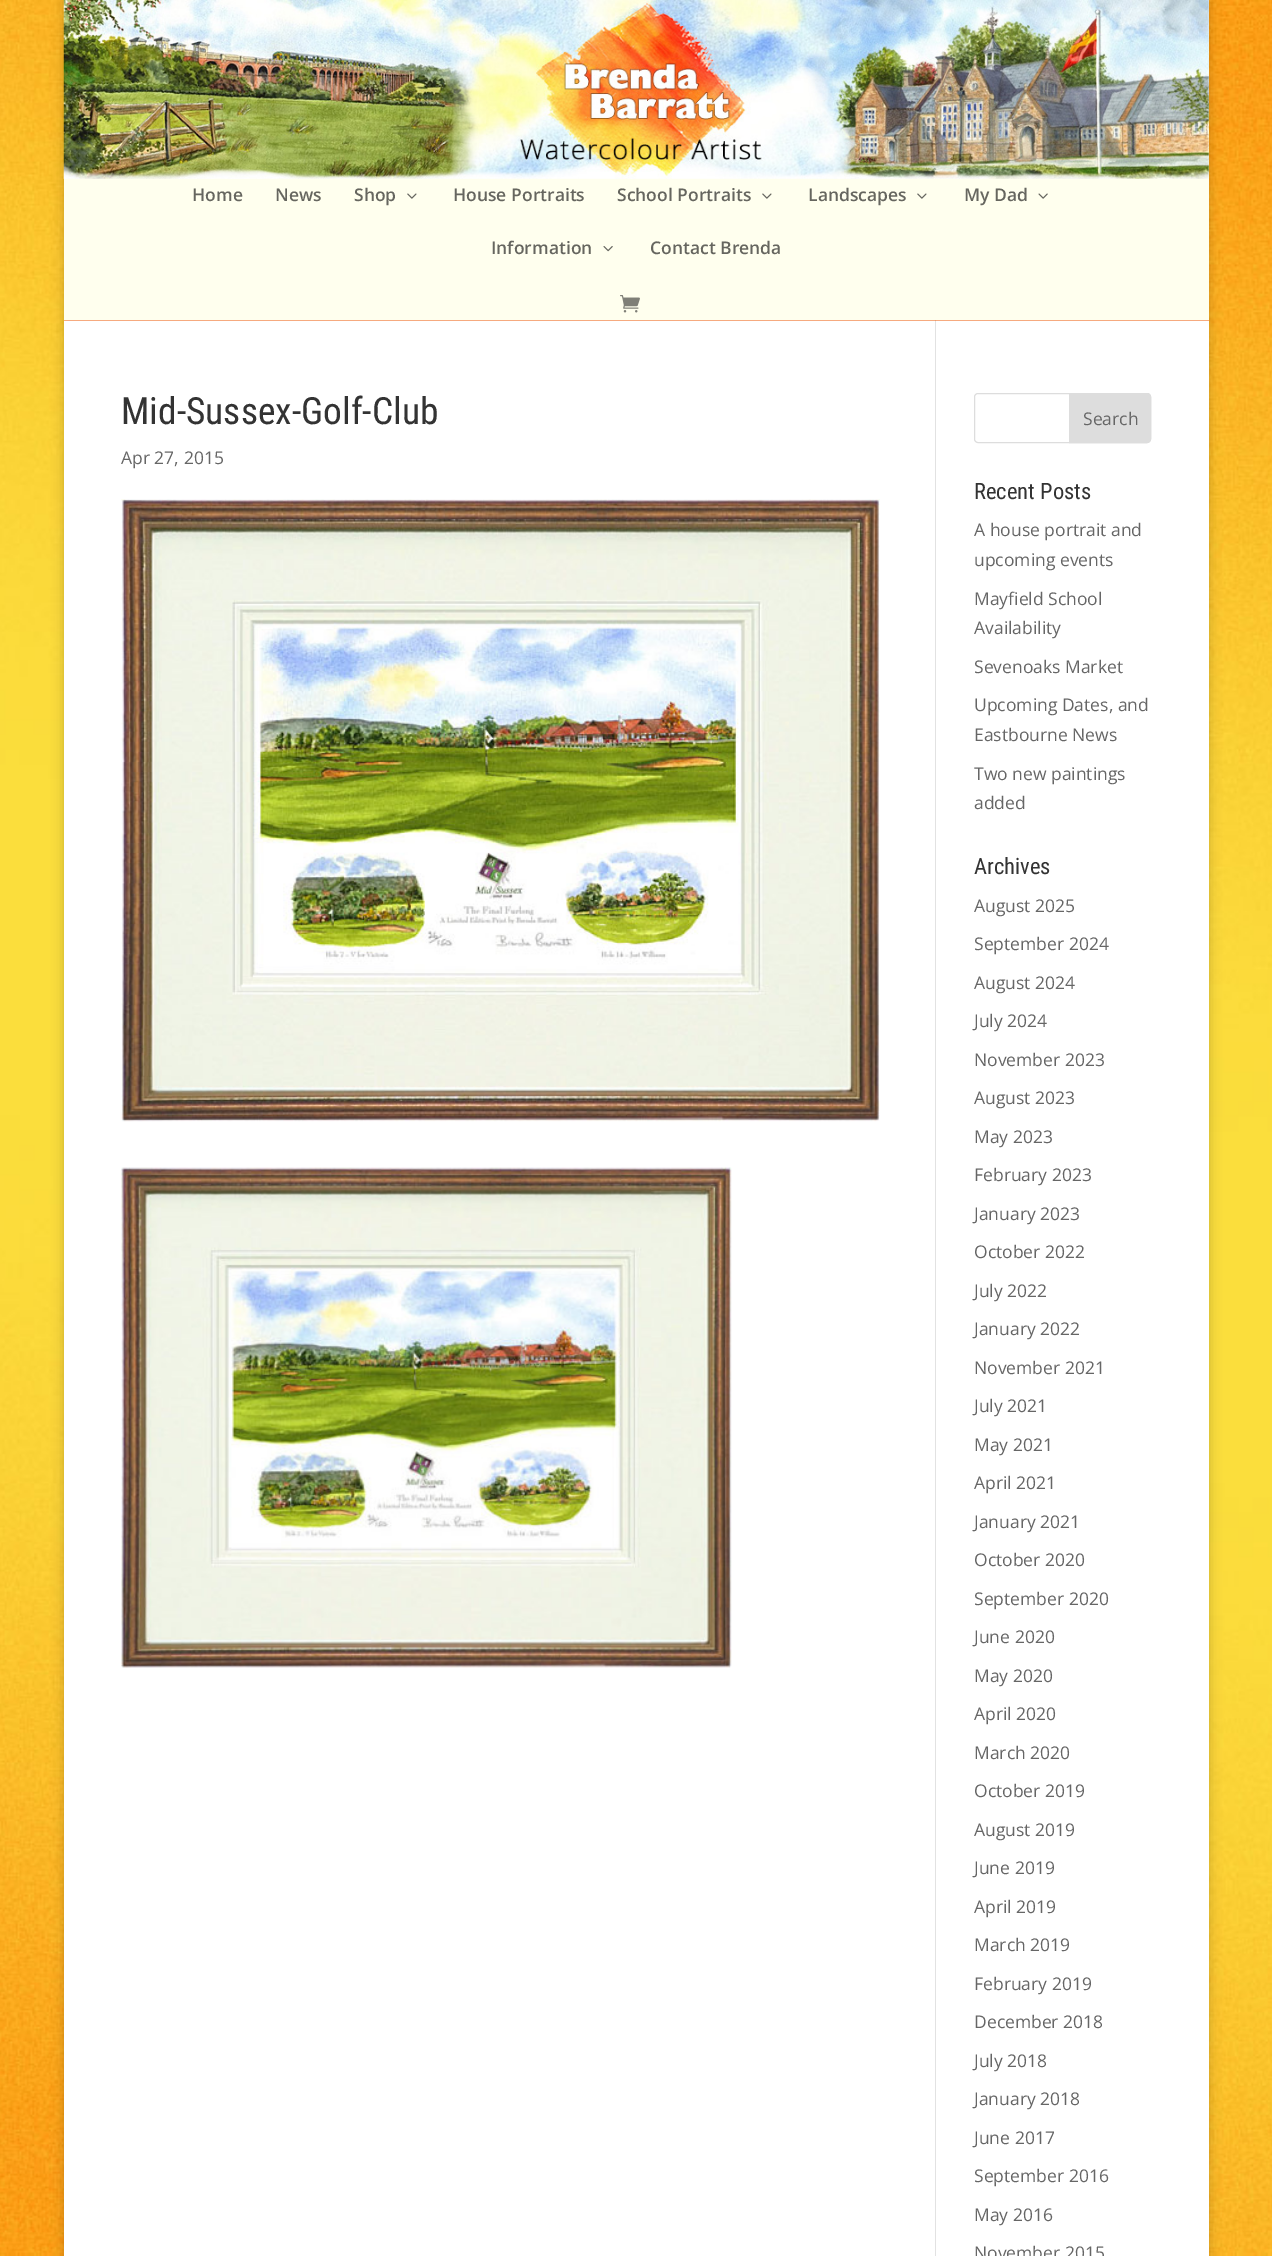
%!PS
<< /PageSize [1272 2256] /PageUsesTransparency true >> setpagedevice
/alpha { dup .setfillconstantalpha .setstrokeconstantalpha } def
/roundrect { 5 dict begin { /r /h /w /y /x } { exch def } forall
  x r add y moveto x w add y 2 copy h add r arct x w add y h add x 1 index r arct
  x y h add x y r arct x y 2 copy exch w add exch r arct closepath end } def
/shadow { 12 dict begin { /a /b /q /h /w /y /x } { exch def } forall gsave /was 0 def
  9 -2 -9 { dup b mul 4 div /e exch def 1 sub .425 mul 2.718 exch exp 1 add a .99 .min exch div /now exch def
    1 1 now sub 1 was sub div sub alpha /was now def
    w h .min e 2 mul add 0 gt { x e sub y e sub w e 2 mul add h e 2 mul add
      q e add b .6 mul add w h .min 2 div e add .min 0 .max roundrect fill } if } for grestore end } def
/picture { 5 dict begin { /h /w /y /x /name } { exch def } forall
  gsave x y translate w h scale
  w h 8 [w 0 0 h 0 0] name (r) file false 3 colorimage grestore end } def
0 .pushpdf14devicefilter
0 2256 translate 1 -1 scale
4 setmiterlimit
1 setgray
0 0 1272 2256 rectfill
(img1.rgb) 0 0 1272 2256 picture
0 setgray
64 0 1145 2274 0 6 0.2 shadow
1 1 0.933 setrgbcolor
64 0 1145 320 rectfill
(img2.rgb) 63 0 1146 179 picture
1 setgray
64 320 1145 1936 rectfill
0.886 setgray
935 320 1 1936 rectfill
0.5 alpha
0.929 0.337 0 setrgbcolor
newpath 64 320 moveto 64 321 lineto 1209 321 lineto 1209 188 lineto 1209 320 lineto closepath fill
/OpenSans-SemiBold [17.5 0 0 -17.5 0 0] selectfont
1 alpha
0.4 0.4 0.373 setrgbcolor
192 201 moveto (Home) show
275 201 moveto (News) show
354 201 moveto (Shop) show
(img3.rgb) 407 193 10 6 picture
453 201 moveto (House Portraits) show
617 201 moveto (School Portraits) show
(img3.rgb) 762 193 10 6 picture
808 201 moveto (Landscapes) show
(img3.rgb) 917 193 10 6 picture
964 201 moveto (My Dad) show
(img4.rgb) 1038 193 10 6 picture
491 254 moveto (Information) show
(img5.rgb) 603 246 10 6 picture
650 254 moveto (Contact Brenda) show
(img6.rgb) 620 295 20 18 picture
/RobotoCondensed-Regular [37.5 0 0 -37.5 0 0] selectfont
0.2 setgray
121 424 moveto (Mid-Sussex-Golf-Club) show
/OpenSans-Regular [17.5 0 0 -17.5 0 0] selectfont
0.4 setgray
121 464 moveto (Apr 27, 2015) show
(img7.rgb) 121 499 759 623 picture
(img8.rgb) 121 1167 611 501 picture
0.867 setgray
974.5 393.5 176 49 3.5 roundrect stroke
newpath 1069.5 393.5 moveto 1147 393.5 lineto 1149 393.5 1150.5 395 1150.5 397 curveto 1150.5 439 lineto 1150.5 441 1149 442.5 1147 442.5 curveto 1069.5 442.5 lineto closepath gsave fill grestore
stroke
0.4 setgray
1083 425 moveto (Search) show
/RobotoCondensed-Regular [22.5 0 0 -22.5 0 0] selectfont
0.2 setgray
974 499 moveto (Recent Posts) show
/OpenSans-Regular [17.5 0 0 -17.5 0 0] selectfont
0.4 setgray
974 536 moveto (A house portrait and) show
974 566 moveto (upcoming events) show
974 605 moveto (Mayfield School) show
974 634 moveto (Availability) show
974 673 moveto (Sevenoaks Market) show
974 711 moveto (Upcoming Dates, and) show
974 741 moveto (Eastbourne News) show
974 780 moveto (Two new paintings) show
974 809 moveto (added) show
/RobotoCondensed-Regular [22.5 0 0 -22.5 0 0] selectfont
0.2 setgray
974 874 moveto (Archives) show
/OpenSans-Regular [17.5 0 0 -17.5 0 0] selectfont
0.4 setgray
974 912 moveto (August 2025) show
974 950 moveto (September 2024) show
974 989 moveto (August 2024) show
974 1027 moveto (July 2024) show
974 1066 moveto (November 2023) show
974 1104 moveto (August 2023) show
974 1143 moveto (May 2023) show
974 1181 moveto (February 2023) show
974 1220 moveto (January 2023) show
974 1258 moveto (October 2022) show
974 1297 moveto (July 2022) show
974 1335 moveto (January 2022) show
974 1374 moveto (November 2021) show
974 1412 moveto (July 2021) show
974 1451 moveto (May 2021) show
974 1489 moveto (April 2021) show
974 1528 moveto (January 2021) show
974 1566 moveto (October 2020) show
974 1605 moveto (September 2020) show
974 1643 moveto (June 2020) show
974 1682 moveto (May 2020) show
974 1720 moveto (April 2020) show
974 1759 moveto (March 2020) show
974 1797 moveto (October 2019) show
974 1836 moveto (August 2019) show
974 1874 moveto (June 2019) show
974 1913 moveto (April 2019) show
974 1951 moveto (March 2019) show
974 1990 moveto (February 2019) show
974 2028 moveto (December 2018) show
974 2067 moveto (July 2018) show
974 2105 moveto (January 2018) show
974 2144 moveto (June 2017) show
974 2182 moveto (September 2016) show
974 2221 moveto (May 2016) show
974 2259 moveto (November 2015) show
.poppdf14devicefilter showpage
